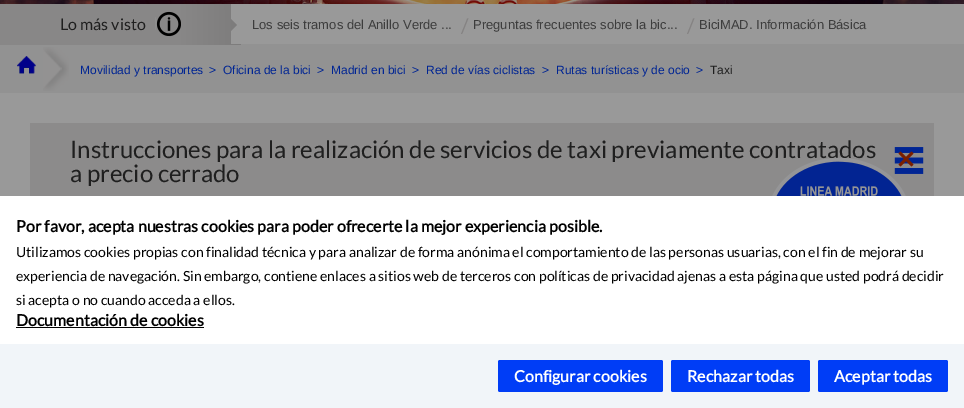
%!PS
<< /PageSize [964 408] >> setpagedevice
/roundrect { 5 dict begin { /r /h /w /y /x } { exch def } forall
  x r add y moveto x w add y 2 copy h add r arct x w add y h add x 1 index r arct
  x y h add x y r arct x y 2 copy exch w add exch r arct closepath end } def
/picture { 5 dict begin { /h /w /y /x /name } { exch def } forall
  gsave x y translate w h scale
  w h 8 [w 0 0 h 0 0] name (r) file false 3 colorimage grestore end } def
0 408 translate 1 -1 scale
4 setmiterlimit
0.6 setgray
0 0 964 408 rectfill
(img1.rgb) 0 0 964 4 picture
0.573 setgray
0 44 964 49 rectfill
gsave newpath 0 4 moveto 241 4 lineto 241 45 lineto 0 45 lineto closepath clip newpath
<< /ShadingType 2 /ColorSpace /DeviceRGB /Coords [0 25 241 24] /Extend [true true] /Function << /FunctionType 3 /Domain [0 1] /Functions [<< /FunctionType 2 /Domain [0 1] /C0 [0.533 0.529 0.529] /C1 [0.533 0.529 0.529] /N 1 >> << /FunctionType 2 /Domain [0 1] /C0 [0.533 0.529 0.529] /C1 [0.49 0.486 0.486] /N 1 >>] /Bounds [0.75] /Encode [0 1 0 1] >> >> shfill grestore
/Lato-Regular [16 0 0 -16 0 0] selectfont
0.122 setgray
60 30 moveto (Lo más visto) show
(img2.rgb) 155 11 26 26 picture
0.6 setgray
231 4 10 40 rectfill
0.49 0.486 0.486 setrgbcolor
newpath 231 31 moveto 231 19 lineto 237 25 lineto closepath fill
/LiberationSans-Regular [13 0 0 -13 0 0] selectfont
0.239 setgray
252 29 moveto (Los seis tramos del Anillo Verde ...) show
/Lato-Regular [20 0 0 -20 0 0] selectfont
0.522 0.514 0.514 setrgbcolor
461 33 moveto (/) show
/LiberationSans-Regular [13 0 0 -13 0 0] selectfont
0.239 setgray
473 29 moveto (Preguntas frecuentes sobre la bic...) show
/Lato-Regular [20 0 0 -20 0 0] selectfont
0.522 0.514 0.514 setrgbcolor
687 33 moveto (/) show
/LiberationSans-Regular [13 0 0 -13 0 0] selectfont
0.239 setgray
699 29 moveto (BiciMAD. Información Básica) show
(img3.rgb) 17 56 19 18 picture
(img4.rgb) 43 47 26 44 picture
/LiberationSans-Regular [12 0 0 -12 0 0] selectfont
0 0.145 0.58 setrgbcolor
80 74 moveto (Movilidad y transportes) show
209 74 moveto (>) show
223 74 moveto (Oficina de la bici) show
317 74 moveto (>) show
331 74 moveto (Madrid en bici) show
412 74 moveto (>) show
426 74 moveto (Red de vías ciclistas) show
542 74 moveto (>) show
556 74 moveto (Rutas turísticas y de ocio) show
696 74 moveto (>) show
0.122 setgray
710 74 moveto (Taxi) show
0.549 0.545 0.545 setrgbcolor
30 123 904 73 rectfill
/Lato-Regular [24 0 0 -24 0 0] selectfont
0.122 setgray
70 158 moveto (Instrucciones para la realización de servicios de taxi previamente contratados) show
(img5.rgb) 894 147 30 27 picture
70 182 moveto (a precio cerrado) show
(img7.rgb) 772 157 134 39 picture
(img6.rgb) 898 151 16 16 picture
1 setgray
0 196 964 148 rectfill
/Lato-Bold [16 0 0 -16 0 0] selectfont
0 setgray
16 232 moveto (Por favor, acepta nuestras cookies para poder ofrecerte la mejor experiencia posible.) show
/Lato-Regular [14 0 0 -14 0 0] selectfont
16 257 moveto (Utilizamos cookies propias con finalidad técnica y para analizar de forma anónima el comportamiento de las personas usuarias, con el fin de mejorar su) show
16 281 moveto (experiencia de navegación. Sin embargo, contiene enlaces a sitios web de terceros con políticas de privacidad ajenas a esta página que usted podrá decidir) show
16 305 moveto (si acepta o no cuando acceda a ellos.) show
/Lato-Bold [16 0 0 -16 0 0] selectfont
16 326 moveto (Documentación de cookies) show
16 327 188 1 rectfill
0.945 0.961 0.976 setrgbcolor
0 344 964 64 rectfill
0 0.239 0.965 setrgbcolor
498 360 165 32 2 roundrect fill
1 setgray
514 382 moveto (Configurar cookies) show
0 0.239 0.965 setrgbcolor
671 360 139 32 2 roundrect fill
1 setgray
687 382 moveto (Rechazar todas) show
0 0.239 0.965 setrgbcolor
818 360 130 32 2 roundrect fill
1 setgray
834 382 moveto (Aceptar todas) show
showpage
